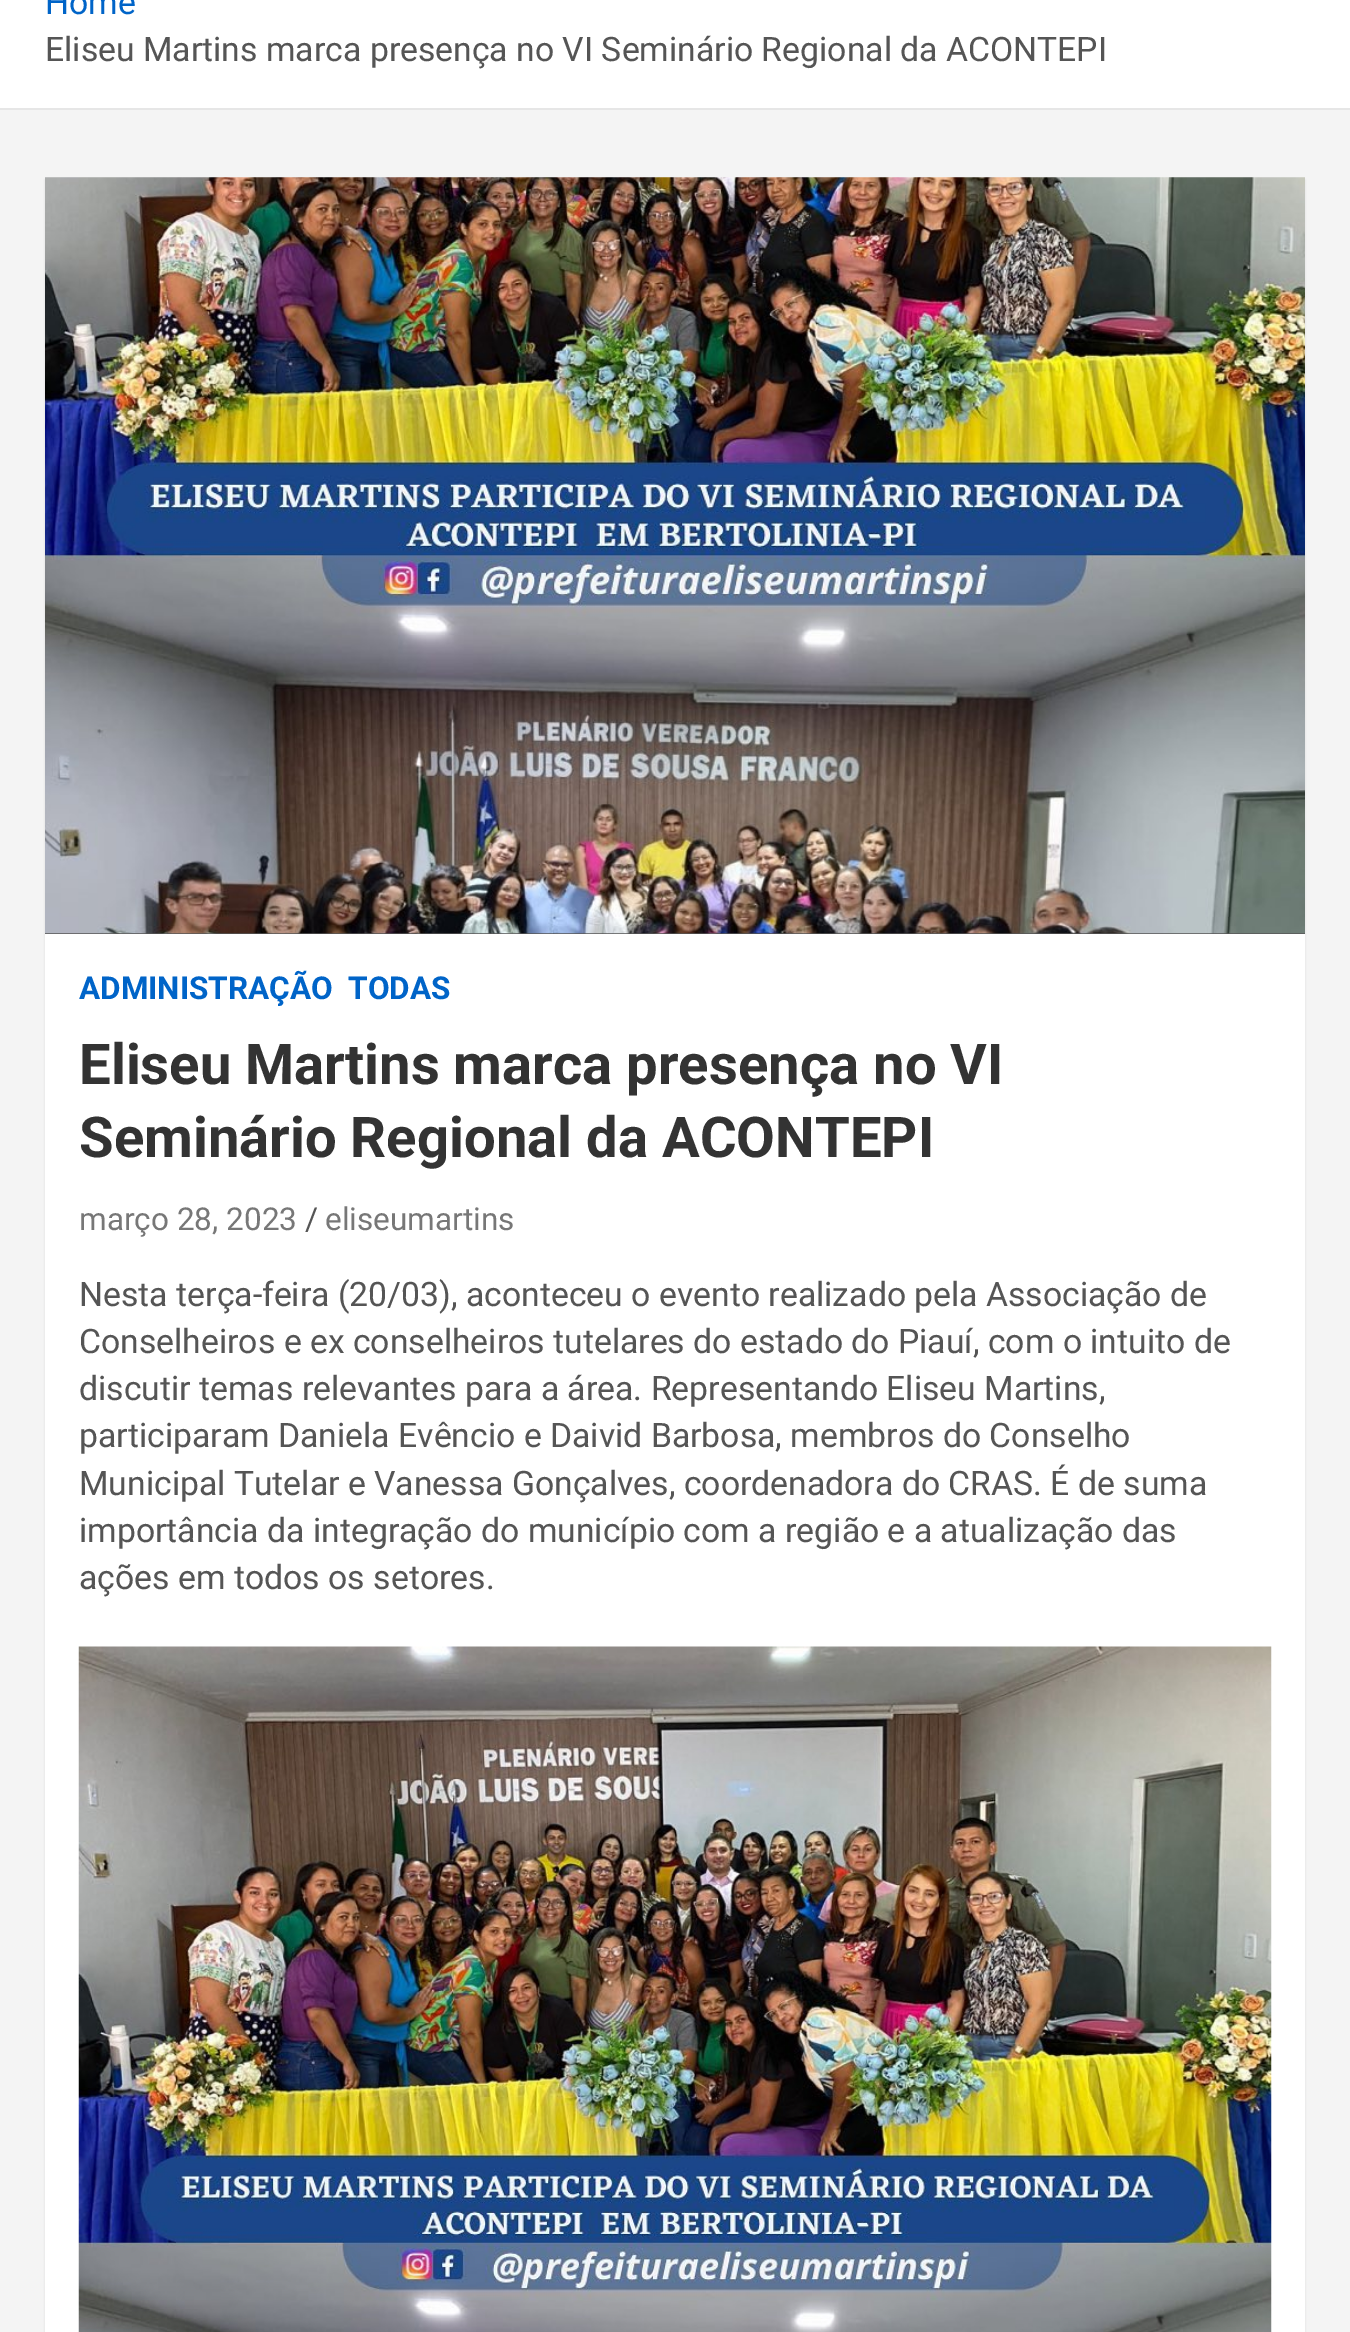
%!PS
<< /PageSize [1350 2332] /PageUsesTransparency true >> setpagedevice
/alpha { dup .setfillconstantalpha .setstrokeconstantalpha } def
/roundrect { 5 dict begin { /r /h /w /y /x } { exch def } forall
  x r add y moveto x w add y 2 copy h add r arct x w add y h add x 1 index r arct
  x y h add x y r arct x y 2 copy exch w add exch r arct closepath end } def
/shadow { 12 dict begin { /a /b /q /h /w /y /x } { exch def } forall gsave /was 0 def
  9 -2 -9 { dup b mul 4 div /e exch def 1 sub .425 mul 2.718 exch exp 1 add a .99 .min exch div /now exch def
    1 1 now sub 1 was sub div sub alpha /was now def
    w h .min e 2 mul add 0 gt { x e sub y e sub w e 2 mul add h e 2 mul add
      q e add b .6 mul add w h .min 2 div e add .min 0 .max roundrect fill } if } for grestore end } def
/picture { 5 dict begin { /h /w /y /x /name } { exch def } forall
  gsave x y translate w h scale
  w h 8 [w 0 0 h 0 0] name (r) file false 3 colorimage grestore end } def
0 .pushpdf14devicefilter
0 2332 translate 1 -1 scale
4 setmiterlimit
0.957 setgray
0 0 1350 2332 rectfill
1 setgray
0 0 1350 108 rectfill
0.902 setgray
0 108 1350 2 rectfill
/Roboto-Regular [33.75 0 0 -33.75 0 0] selectfont
0 0.392 0.784 setrgbcolor
45 14 moveto (Home) show
0.333 setgray
45 61 moveto (Eliseu Martins marca presença no VI Seminário Regional da ACONTEPI) show
0 setgray
45 180 1260 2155 0 1 0.1 shadow
1 setgray
45 934 1260 1398 rectfill
0.333 setgray
45 933 1260 1 rectfill
(img1.rgb) 45 177 1260 757 picture
/Roboto-Bold [31.5 0 0 -31.5 0 0] selectfont
0 0.392 0.784 setrgbcolor
79 999 moveto (ADMINISTRAÇÃO) show
348 999 moveto (TODAS) show
/Roboto-Bold [56.25 0 0 -56.25 0 0] selectfont
0.2 setgray
79 1084 moveto (Eliseu Martins marca presença no VI) show
79 1157 moveto (Seminário Regional da ACONTEPI) show
/Roboto-Regular [31.5 0 0 -31.5 0 0] selectfont
0.467 setgray
79 1230 moveto (março 28, 2023) show
0.333 setgray
305 1230 moveto (/) show
0.467 setgray
325 1230 moveto (eliseumartins) show
/Roboto-Regular [33.75 0 0 -33.75 0 0] selectfont
0.333 setgray
79 1306 moveto (Nesta terça-feira \(20/03\), aconteceu o evento realizado pela Associação de) show
79 1353 moveto (Conselheiros e ex conselheiros tutelares do estado do Piauí, com o intuito de) show
79 1400 moveto (discutir temas relevantes para a área. Representando Eliseu Martins,) show
79 1447 moveto (participaram Daniela Evêncio e Daivid Barbosa, membros do Conselho) show
79 1495 moveto (Municipal Tutelar e Vanessa Gonçalves, coordenadora do CRAS. É de suma) show
79 1542 moveto (importância da integração do município com a região e a atualização das) show
79 1589 moveto (ações em todos os setores.) show
(img2.rgb) 78 1646 1194 686 picture
.poppdf14devicefilter showpage
